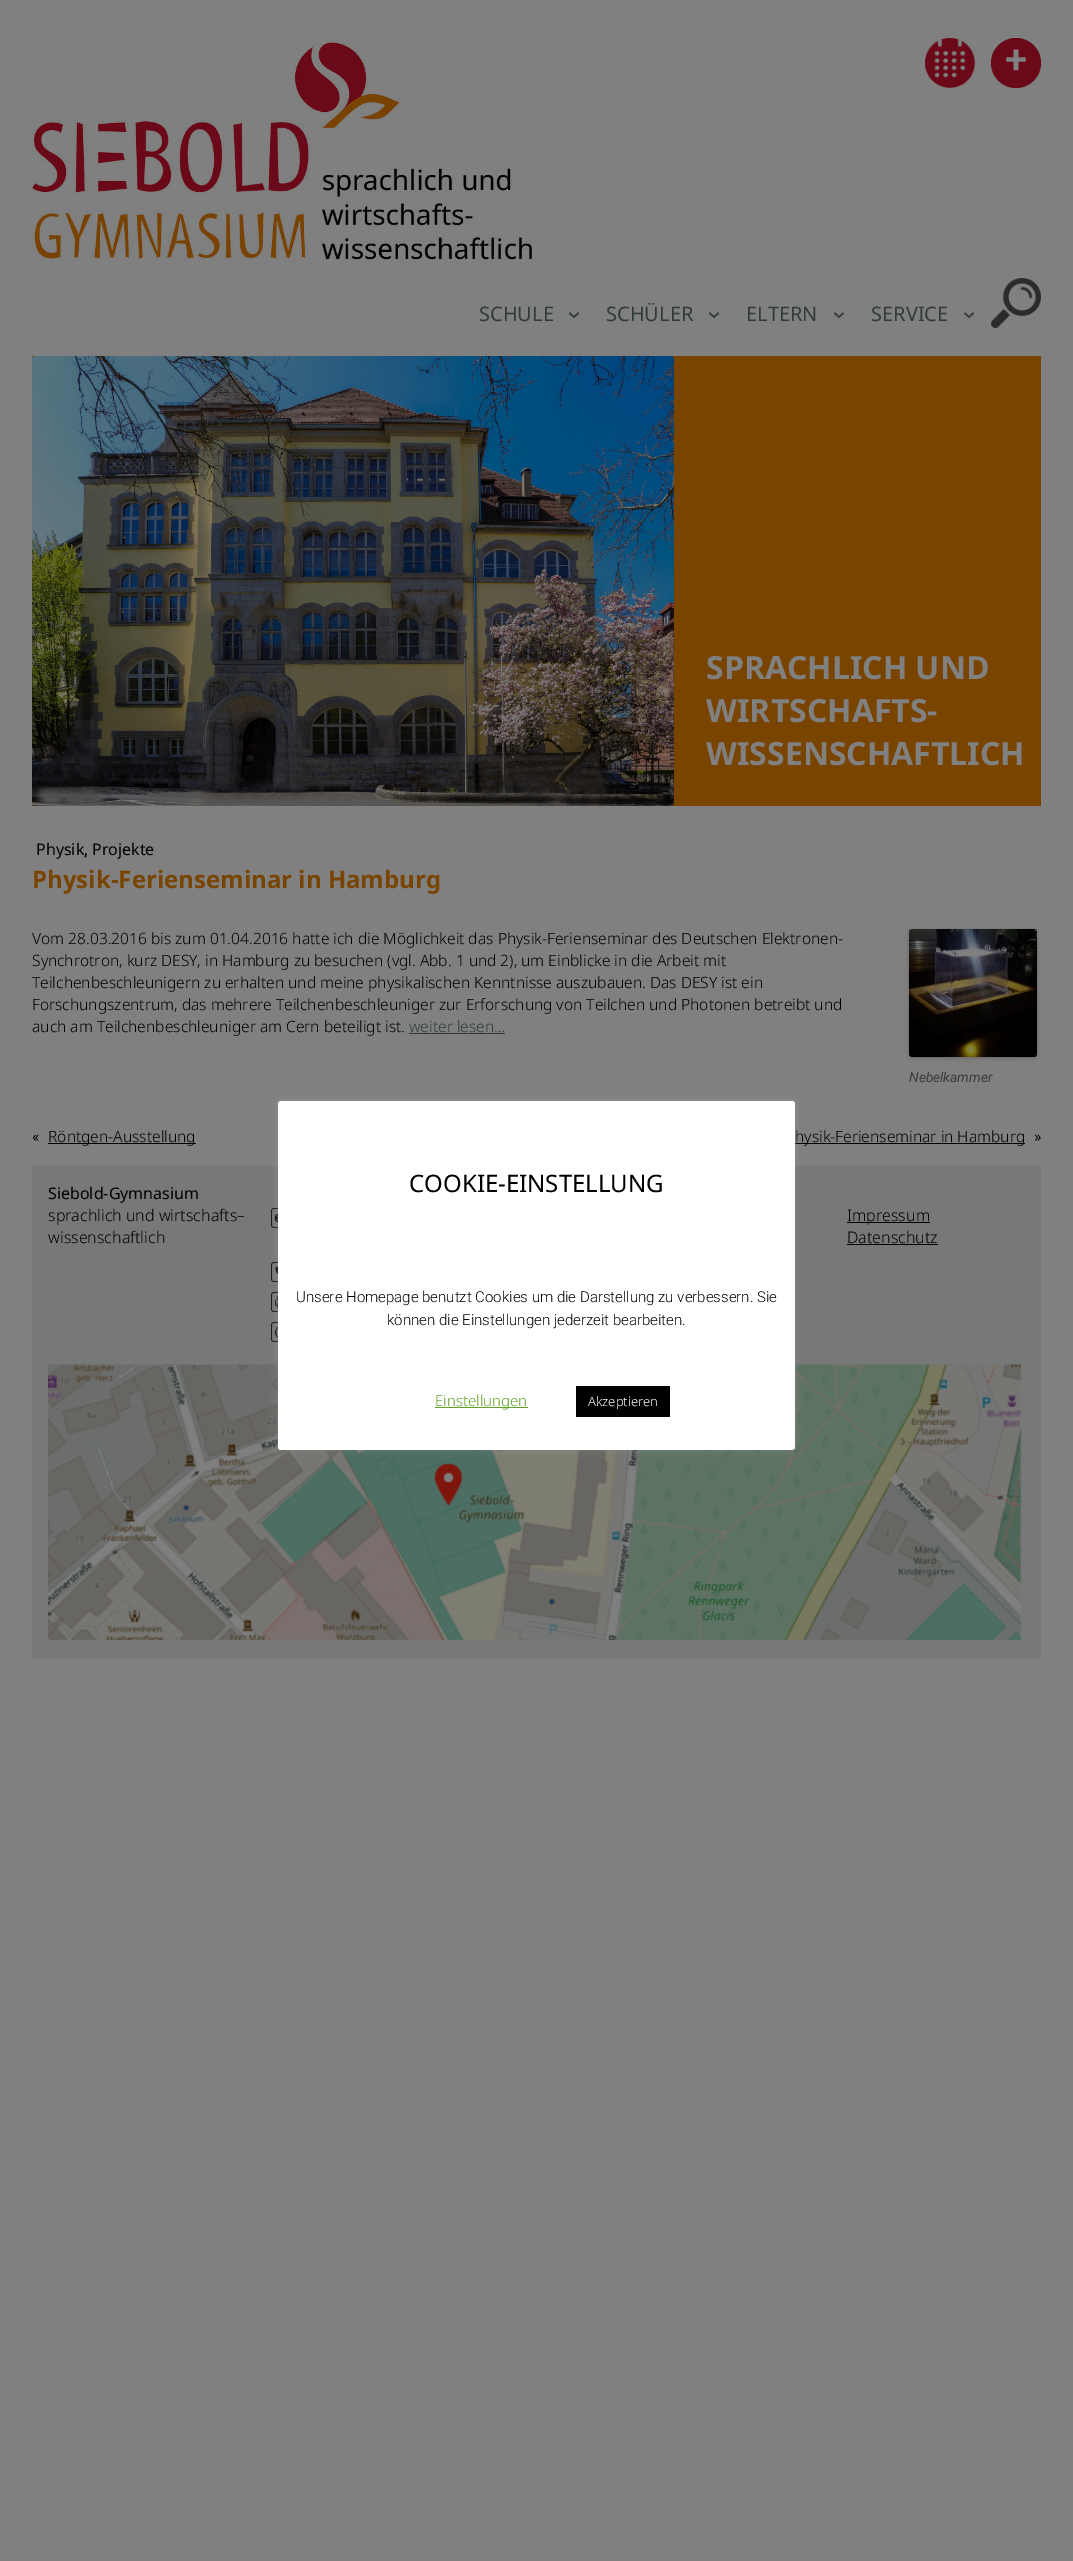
%!PS
<< /PageSize [1073 2561] /PageUsesTransparency true >> setpagedevice
/alpha { dup .setfillconstantalpha .setstrokeconstantalpha } def
/roundrect { 5 dict begin { /r /h /w /y /x } { exch def } forall
  x r add y moveto x w add y 2 copy h add r arct x w add y h add x 1 index r arct
  x y h add x y r arct x y 2 copy exch w add exch r arct closepath end } def
/shadow { 12 dict begin { /a /b /q /h /w /y /x } { exch def } forall gsave /was 0 def
  9 -2 -9 { dup b mul 4 div /e exch def 1 sub .425 mul 2.718 exch exp 1 add a .99 .min exch div /now exch def
    1 1 now sub 1 was sub div sub alpha /was now def
    w h .min e 2 mul add 0 gt { x e sub y e sub w e 2 mul add h e 2 mul add
      q e add b .6 mul add w h .min 2 div e add .min 0 .max roundrect fill } if } for grestore end } def
/picture { 5 dict begin { /h /w /y /x /name } { exch def } forall
  gsave x y translate w h scale
  w h 8 [w 0 0 h 0 0] name (r) file false 3 colorimage grestore end } def
0 .pushpdf14devicefilter
0 2561 translate 1 -1 scale
4 setmiterlimit
0.502 setgray
0 0 1073 2561 rectfill
(img1.rgb) 32 39 500 221 picture
(img2.rgb) 925 38 50 50 picture
0.42 0.035 0.094 setrgbcolor
newpath 1016 63 25 0 360 arc closepath fill
/Roboto-SemiBold [40 0 0 -40 0 0] selectfont
0.502 setgray
1005 73 moveto (+) show
/NotoSans-Regular [20 0 0 -20 0 0] selectfont
0.188 0.227 0.227 setrgbcolor
479 321 moveto (SCHULE) show
1.5 setlinewidth
newpath 569.5 313 moveto 574 317 lineto 578.5 313 lineto stroke
606 321 moveto (SCHÜLER) show
newpath 709.5 313 moveto 714 317 lineto 718.5 313 lineto stroke
746 321 moveto (ELTERN) show
newpath 834.5 313 moveto 839 317 lineto 843.5 313 lineto stroke
871 321 moveto (SERVICE) show
newpath 964.5 313 moveto 969 317 lineto 973.5 313 lineto stroke
(img3.rgb) 991 278 50 50 picture
0.475 0.267 0 setrgbcolor
32 356 1009 450 rectfill
(img4.rgb) 32 356 642 450 picture
/NotoSans-Bold [32 0 0 -32 0 0] selectfont
0.502 setgray
706 679 moveto (SPRACHLICH UND) show
706 722 moveto (WIRTSCHAFTS-) show
706 765 moveto (WISSENSCHAFTLICH) show
/NotoSans-Regular [16 0 0 -16 0 0] selectfont
0 setgray
36 855 moveto (Physik) show
/Roboto-SemiBold [15.57 0 0 -15.57 0 0] selectfont
84 855 moveto (,) show
/NotoSans-Regular [16 0 0 -16 0 0] selectfont
92 855 moveto (Projekte) show
/NotoSans-Bold [24 0 0 -24 0 0] selectfont
0.475 0.267 0 setrgbcolor
32 888 moveto (Physik-Ferienseminar in Hamburg) show
/NotoSans-Light [15.57 0 0 -15.57 0 0] selectfont
0 setgray
32 944 moveto (Vom 28.03.2016 bis zum 01.04.2016 hatte ich die Möglichkeit das Physik-Ferienseminar des Deutschen Elektronen-) show
32 966 moveto (Synchrotron, kurz DESY, in Hamburg zu besuchen \(vgl. Abb. 1 und 2\), um Einblicke in die Arbeit mit) show
32 988 moveto (Teilchenbeschleunigern zu erhalten und meine physikalischen Kenntnisse auszubauen. Das DESY ist ein) show
32 1010 moveto (Forschungszentrum, das mehrere Teilchenbeschleuniger zur Erforschung von Teilchen und Photonen betreibt und) show
32 1032 moveto (auch am Teilchenbeschleuniger am Cern beteiligt ist.) show
0.188 0.227 0.227 setrgbcolor
409 1032 moveto (weiter lesen…) show
409 1033 96 1 rectfill
0 setgray
909 930 128 128 3 2 0.2 shadow
(img5.rgb) 909 929 128 128 picture
/Roboto-Italic [13.75 0 0 -13.75 0 0] selectfont
0.231 setgray
909 1082 moveto (Nebelkammer) show
/Roboto-Regular [15.57 0 0 -15.57 0 0] selectfont
0 setgray
32 1142 moveto («) show
48 1143 148 1 rectfill
/NotoSans-Light [15.57 0 0 -15.57 0 0] selectfont
48 1142 moveto (Röntgen-Ausstellung) show
795 1143 230 1 rectfill
795 1142 moveto (hysik-Ferienseminar in Hamburg) show
/Roboto-Regular [15.57 0 0 -15.57 0 0] selectfont
1034 1142 moveto (») show
0.467 0.471 0.471 setrgbcolor
32 1166 1009 493 rectfill
/NotoSans-Regular [16 0 0 -16 0 0] selectfont
0 setgray
48 1199 moveto (Siebold-Gymnasium) show
/NotoSans-Light [16 0 0 -16 0 0] selectfont
48 1221 moveto (sprachlich und wirtschafts–) show
48 1243 moveto (wissenschaftlich) show
(img6.rgb) 271 1208 7 20 picture
(img7.rgb) 271 1262 7 20 picture
(img8.rgb) 271 1292 7 20 picture
(img9.rgb) 271 1322 7 20 picture
847 1222 83 1 rectfill
847 1221 moveto (Impressum) show
847 1243 moveto (Datenschutz) show
847 1244 91 1 rectfill
(img10.rgb) 48 1364 974 276 picture
0.675 0.671 0.671 setrgbcolor
278 1100 517 349 3 5 0.3 shadow
1 setgray
278 1101 517 349 3 roundrect fill
/NotoSans-Regular [24 0 0 -24 0 0] selectfont
0 setgray
409 1192 moveto (COOKIE-EINSTELLUNG) show
/Roboto-Light [15 0 0 -15 0 0] selectfont
296 1302 moveto (Unsere Homepage benutzt Cookies um die Darstellung zu verbessern. Sie) show
387 1325 moveto (können die Einstellungen jederzeit bearbeiten.) show
0.384 0.639 0.161 setrgbcolor
435 1407 93 1 rectfill
/NotoSans-Light [15 0 0 -15 0 0] selectfont
435 1406 moveto (Einstellungen) show
0 setgray
576 1386 94 31 rectfill
/NotoSans-Light [13 0 0 -13 0 0] selectfont
1 setgray
588 1406 moveto (Akzeptieren) show
.poppdf14devicefilter showpage
